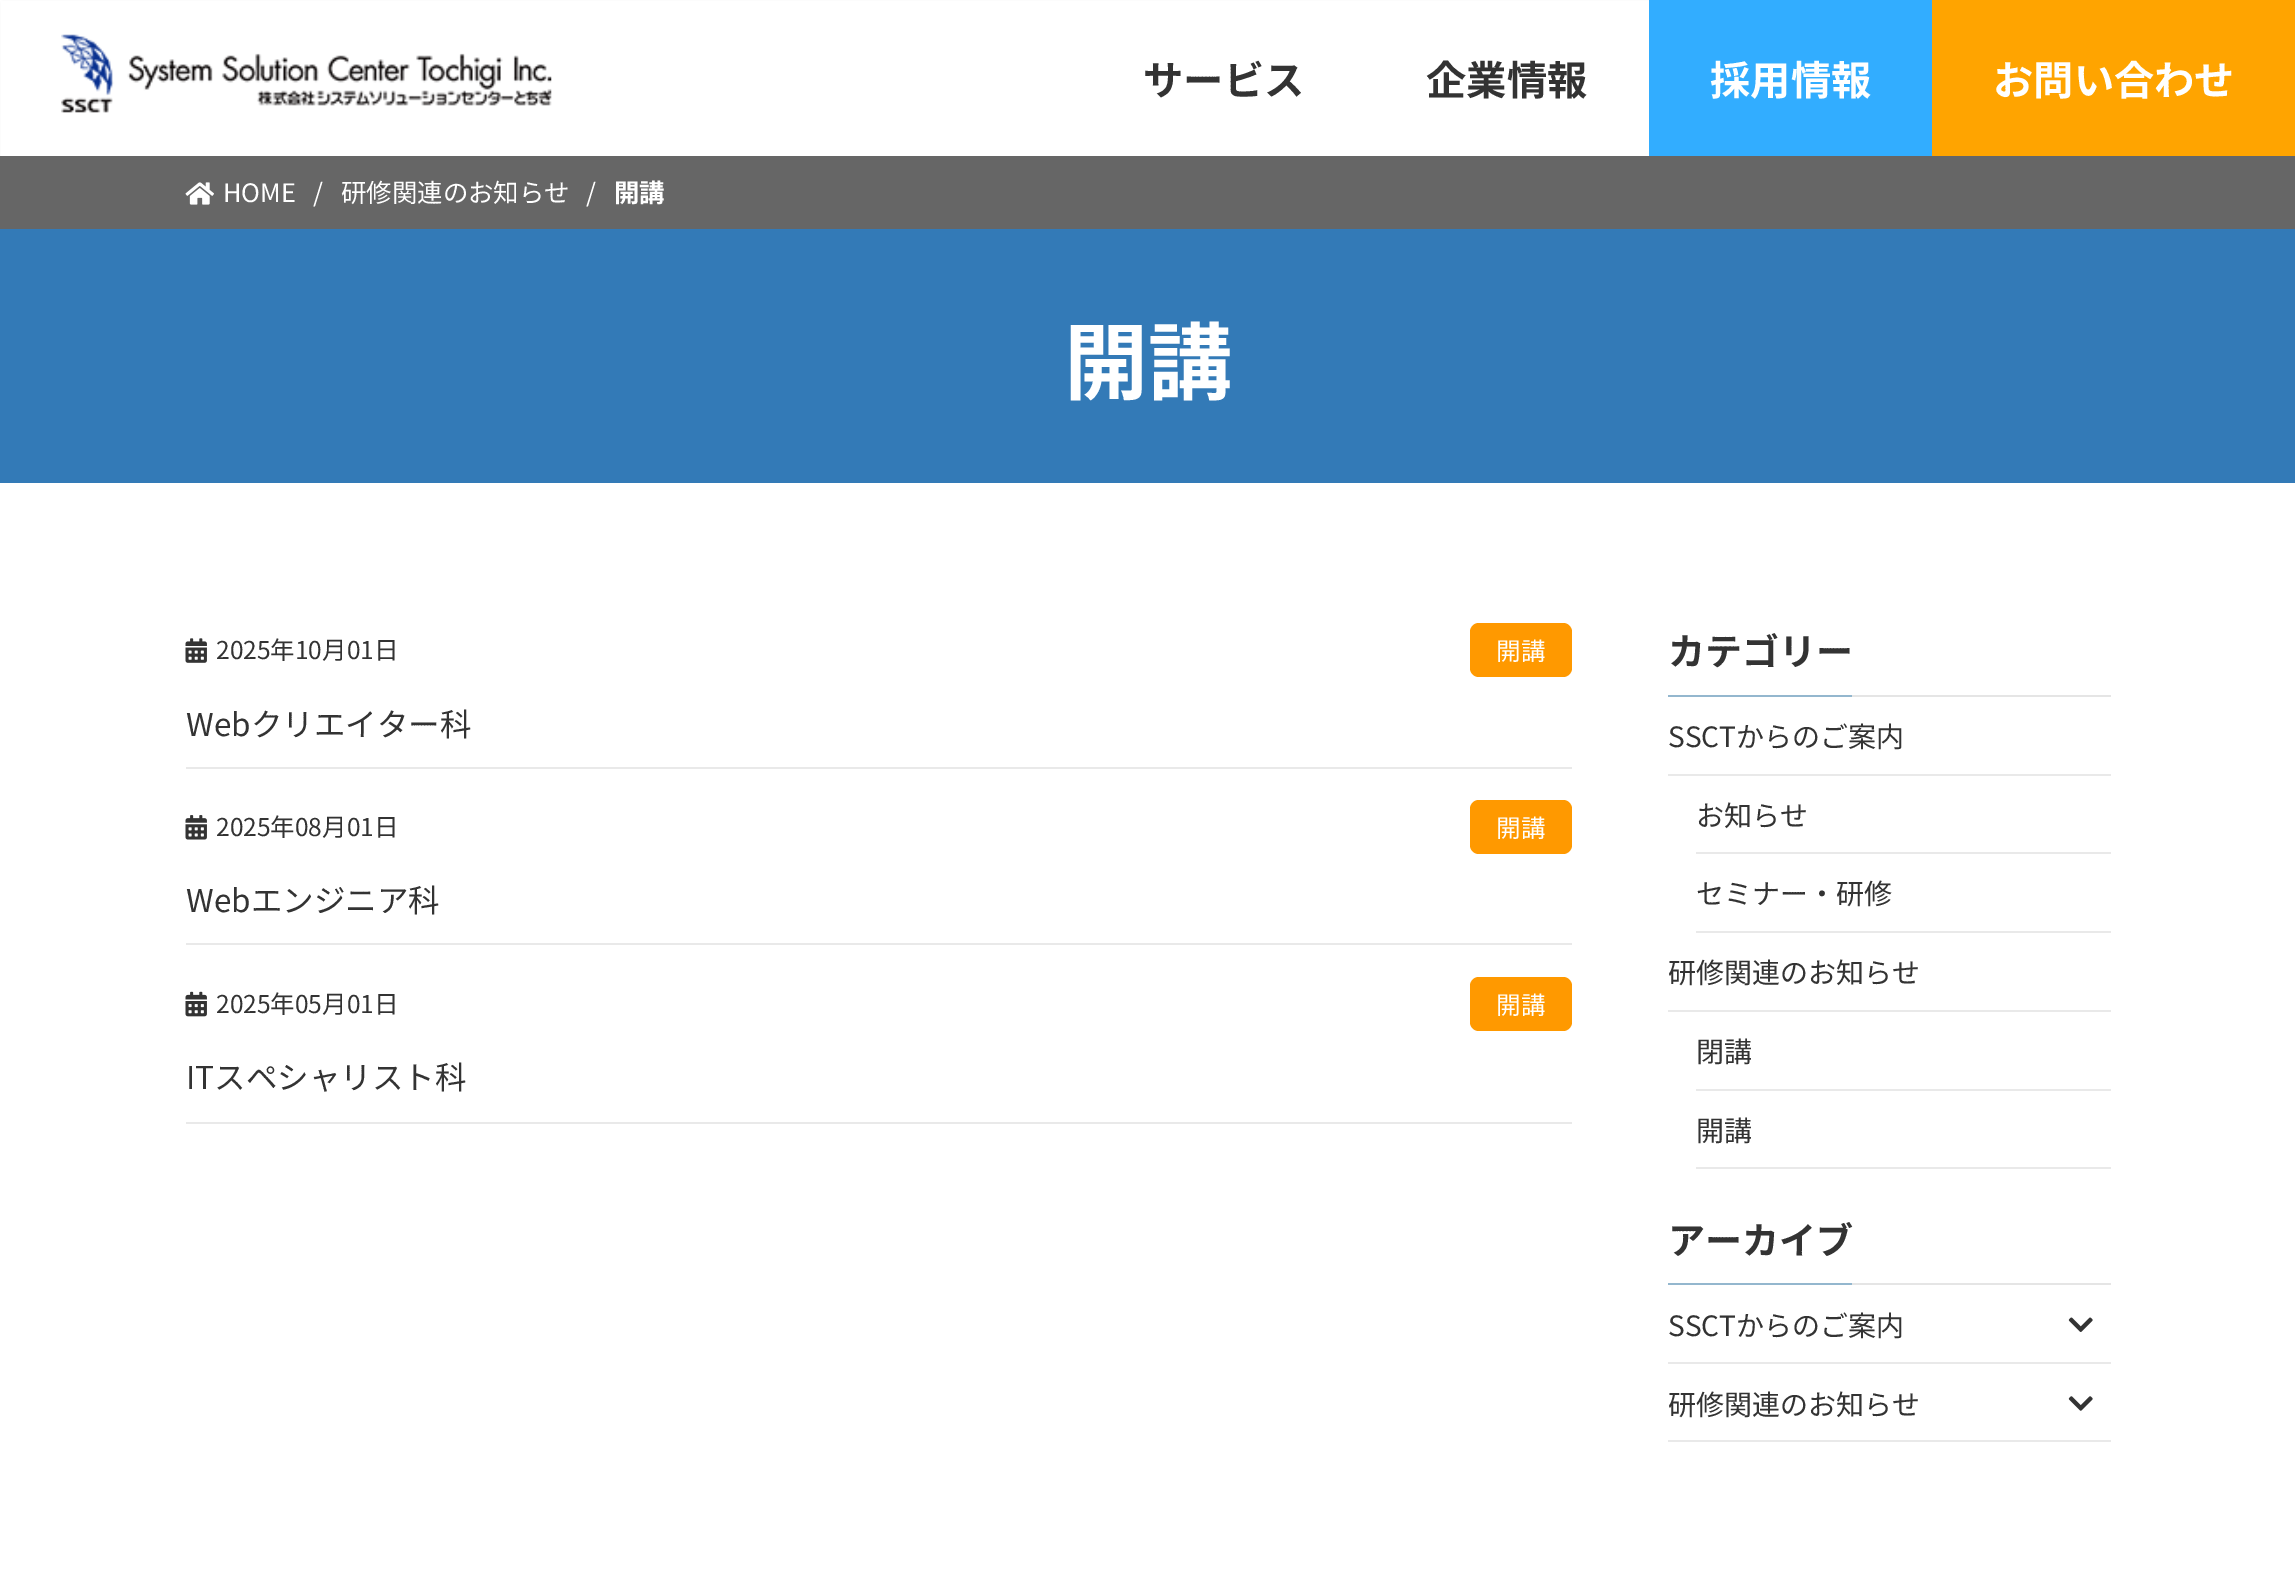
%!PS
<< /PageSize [2295 1576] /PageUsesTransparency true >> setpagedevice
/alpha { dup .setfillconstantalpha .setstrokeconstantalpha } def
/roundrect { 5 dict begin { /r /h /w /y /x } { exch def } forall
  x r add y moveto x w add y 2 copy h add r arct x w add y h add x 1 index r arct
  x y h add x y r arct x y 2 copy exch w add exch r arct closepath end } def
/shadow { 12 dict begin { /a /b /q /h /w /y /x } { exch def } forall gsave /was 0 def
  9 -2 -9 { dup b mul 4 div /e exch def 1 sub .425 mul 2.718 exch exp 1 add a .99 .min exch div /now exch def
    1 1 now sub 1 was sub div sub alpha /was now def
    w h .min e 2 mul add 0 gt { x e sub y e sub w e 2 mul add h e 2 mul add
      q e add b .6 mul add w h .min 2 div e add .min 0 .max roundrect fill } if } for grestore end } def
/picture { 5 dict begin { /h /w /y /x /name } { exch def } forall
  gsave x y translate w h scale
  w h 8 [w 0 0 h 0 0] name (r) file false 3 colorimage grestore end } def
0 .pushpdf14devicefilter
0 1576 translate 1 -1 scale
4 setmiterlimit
1 setgray
0 0 2295 1576 rectfill
0.4 setgray
0 156 2295 73 rectfill
4 4 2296 155 0 2 0.37 shadow
1 setgray
1 1 1648 155 rectfill
(img1.rgb) 61 34 491 79 picture
/NotoSansJP-Bold [40.25 0 0 -40.25 0 0] selectfont
0.2 setgray
1143 95 moveto (サービス) show
1426 95 moveto (企業情報) show
0.196 0.678 1 setrgbcolor
1649 0 283 156 rectfill
1 setgray
1710 95 moveto (採用情報) show
1 0.643 0 setrgbcolor
1932 0 363 156 rectfill
1 setgray
1993 95 moveto (お問い合わせ) show
(img2.rgb) 185 182 29 23 picture
/NotoSansJP-Regular [25.4 0 0 -25.4 0 0] selectfont
223 202 moveto (HOME) show
313 202 moveto (/) show
341 202 moveto (研修関連のお知らせ) show
586 202 moveto (/) show
/NotoSansJP-Bold [25.4 0 0 -25.4 0 0] selectfont
614 202 moveto (開講) show
0.2 0.478 0.718 setrgbcolor
0 229 2295 254 rectfill
/NotoSansJP-Bold [84 0 0 -84 0 0] selectfont
1 setgray
1064 393 moveto (開講) show
0.914 setgray
186 767 1386 2 rectfill
(img3.rgb) 185 638 22 25 picture
/NotoSansJP-Regular [24.5 0 0 -24.5 0 0] selectfont
0.2 setgray
216 659 moveto (2025年10月01日) show
1 0.6 0 setrgbcolor
1470 623 102 54 9 roundrect fill
1 setgray
1496 660 moveto (開講) show
/NotoSansJP-Regular [31.5 0 0 -31.5 0 0] selectfont
0.2 setgray
186 736 moveto (Webクリエイター科) show
0.914 setgray
186 943 1386 2 rectfill
(img4.rgb) 185 815 22 25 picture
/NotoSansJP-Regular [24.5 0 0 -24.5 0 0] selectfont
0.2 setgray
216 836 moveto (2025年08月01日) show
1 0.6 0 setrgbcolor
1470 800 102 54 9 roundrect fill
1 setgray
1496 837 moveto (開講) show
/NotoSansJP-Regular [31.5 0 0 -31.5 0 0] selectfont
0.2 setgray
186 912 moveto (Webエンジニア科) show
0.914 setgray
186 1122 1386 2 rectfill
(img5.rgb) 185 991 22 26 picture
/NotoSansJP-Regular [24.5 0 0 -24.5 0 0] selectfont
0.2 setgray
216 1013 moveto (2025年05月01日) show
1 0.6 0 setrgbcolor
1470 977 102 54 9 roundrect fill
1 setgray
1496 1014 moveto (開講) show
/NotoSansJP-Regular [31.5 0 0 -31.5 0 0] selectfont
0.2 setgray
186 1089 moveto (ITスペシャリスト科) show
/NotoSansJP-Bold [37 0 0 -37 0 0] selectfont
1668 665 moveto (カテゴリー) show
0.58 0.718 0.808 setrgbcolor
1668 695 184 2 rectfill
0.898 setgray
1852 695 259 2 rectfill
0.914 setgray
1668 774 443 2 rectfill
/NotoSansJP-Regular [28 0 0 -28 0 0] selectfont
0.2 setgray
1668 747 moveto (SSCTからのご案内) show
0.914 setgray
1696 852 415 2 rectfill
0.2 setgray
1696 826 moveto (お知らせ) show
0.914 setgray
1696 931 415 2 rectfill
0.2 setgray
1696 904 moveto (セミナー・研修) show
0.914 setgray
1668 1010 443 2 rectfill
0.2 setgray
1668 983 moveto (研修関連のお知らせ) show
0.914 setgray
1696 1089 415 2 rectfill
0.2 setgray
1696 1062 moveto (閉講) show
0.914 setgray
1696 1167 415 2 rectfill
0.2 setgray
1696 1141 moveto (開講) show
/NotoSansJP-Bold [37 0 0 -37 0 0] selectfont
1668 1254 moveto (アーカイブ) show
0.58 0.718 0.808 setrgbcolor
1668 1283 184 2 rectfill
0.898 setgray
1852 1283 259 2 rectfill
0.914 setgray
1668 1362 443 2 rectfill
/NotoSansJP-Regular [28 0 0 -28 0 0] selectfont
0.2 setgray
1668 1336 moveto (SSCTからのご案内) show
(img6.rgb) 2068 1317 25 15 picture
0.914 setgray
1668 1440 443 2 rectfill
0.2 setgray
1668 1415 moveto (研修関連のお知らせ) show
(img7.rgb) 2068 1396 25 15 picture
.poppdf14devicefilter showpage
